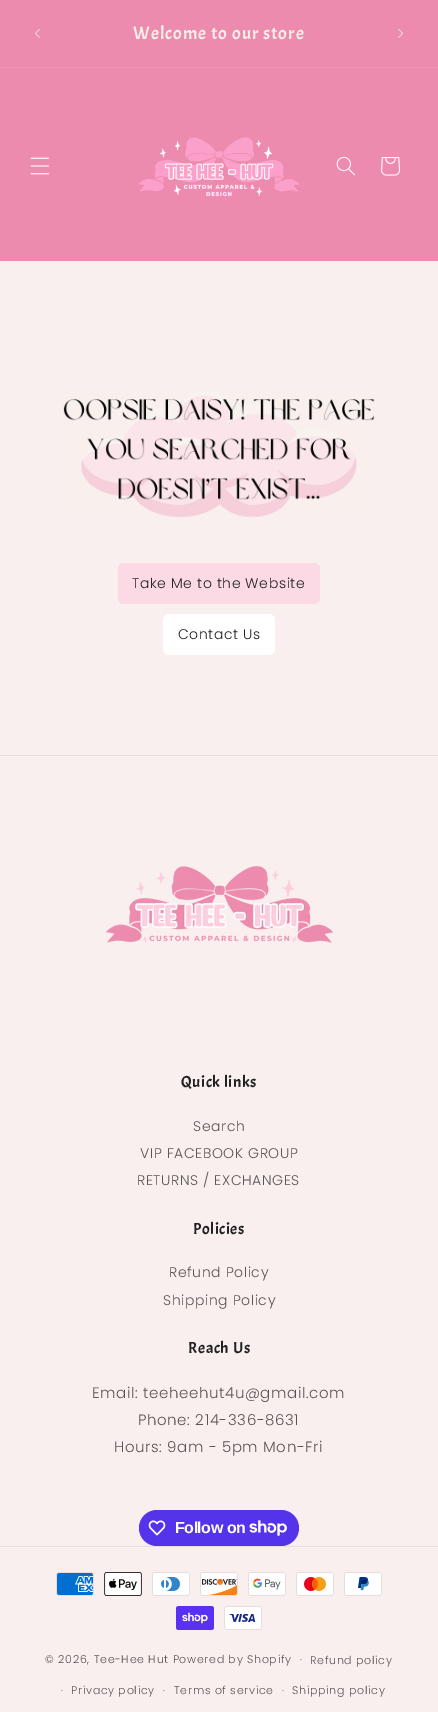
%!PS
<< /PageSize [438 1712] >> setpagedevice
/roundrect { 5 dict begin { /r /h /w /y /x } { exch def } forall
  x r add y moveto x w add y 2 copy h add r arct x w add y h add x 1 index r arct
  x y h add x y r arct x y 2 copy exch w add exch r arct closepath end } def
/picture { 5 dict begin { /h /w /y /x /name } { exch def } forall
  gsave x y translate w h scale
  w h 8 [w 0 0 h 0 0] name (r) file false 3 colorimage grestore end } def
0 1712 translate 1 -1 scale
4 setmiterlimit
0.973 0.937 0.933 setrgbcolor
0 0 438 1712 rectfill
0.929 0.545 0.686 setrgbcolor
0 0 438 67 rectfill
0.933 0.576 0.706 setrgbcolor
0 67 438 1 rectfill
(img1.rgb) 35 29 5 9 picture
/Acme-Regular [18 0 0 -18 0 0] selectfont
0.957 0.937 0.914 setrgbcolor
133 39 moveto 1 0 (Welcome to our store) ashow
(img2.rgb) 398 29 5 9 picture
0.929 0.545 0.686 setrgbcolor
0 68 438 193 rectfill
(img3.rgb) 30 157 20 18 picture
(img4.rgb) 138 137 162 60 picture
(img5.rgb) 336 156 19 20 picture
(img6.rgb) 381 157 20 19 picture
(img7.rgb) 63 392 312 126 picture
0.984 0.851 0.898 setrgbcolor
118 563 202 41 6 roundrect fill
/Poppins-Light [14 0 0 -14 0 0] selectfont
0.133 setgray
132 588 moveto 0.6 0 (Take Me to the Website) ashow
1 setgray
163 614 112 41 6 roundrect fill
0.133 setgray
178 639 moveto 0.6 0 (Contact Us) ashow
0.906 0.875 0.871 setrgbcolor
0 755 438 1 rectfill
(img8.rgb) 106 866 227 77 picture
/Acme-Regular [16 0 0 -16 0 0] selectfont
0.133 setgray
181 1087 moveto 0.6 0 (Quick links) ashow
/Poppins-Light [14 0 0 -14 0 0] selectfont
0.345 0.333 0.333 setrgbcolor
193 1131 moveto 0.6 0 (Search) ashow
140 1158 moveto 0.6 0 (VIP FACEBOOK GROUP) ashow
137 1185 moveto 0.6 0 (RETURNS / EXCHANGES) ashow
/Acme-Regular [16 0 0 -16 0 0] selectfont
0.133 setgray
193 1234 moveto 0.6 0 (Policies) ashow
/Poppins-Light [14 0 0 -14 0 0] selectfont
0.345 0.333 0.333 setrgbcolor
169 1277 moveto 0.6 0 (Refund Policy) ashow
163 1305 moveto 0.6 0 (Shipping Policy) ashow
/Acme-Regular [16 0 0 -16 0 0] selectfont
0.133 setgray
188 1353 moveto 0.6 0 (Reach Us) ashow
/Poppins-Light [15 0 0 -15 0 0] selectfont
0.345 0.333 0.333 setrgbcolor
92 1398 moveto 0.6 0 (Email: teeheehut4u@gmail.com) ashow
138 1425 moveto 0.6 0 (Phone: 214-336-8631) ashow
114 1452 moveto 0.6 0 (Hours: 9am - 5pm Mon-Fri) ashow
0.329 0.2 0.922 setrgbcolor
139 1510 160 36 18 roundrect fill
(img9.rgb) 148 1520 18 16 picture
/LiberationSans-Bold [16 0 0 -16 0 0] selectfont
1 setgray
175 1533 moveto -0.5 0 (Follow on) ashow
(img10.rgb) 249 1520 38 16 picture
0.906 0.875 0.871 setrgbcolor
0 1546 438 1 rectfill
(img11.rgb) 56 1572 38 24 picture
(img12.rgb) 104 1572 38 24 picture
(img13.rgb) 152 1572 38 24 picture
(img14.rgb) 200 1572 38 24 picture
(img15.rgb) 248 1572 38 24 picture
(img16.rgb) 296 1572 38 24 picture
(img17.rgb) 344 1572 38 24 picture
(img18.rgb) 176 1606 38 24 picture
(img19.rgb) 224 1606 38 24 picture
/Poppins-Light [11 0 0 -11 0 0] selectfont
0.345 0.333 0.333 setrgbcolor
45 1663 moveto 0.7 0 (© 2026, Tee-Hee Hut Powered by Shopify) ashow
/Poppins-Light [10 0 0 -10 0 0] selectfont
300 1663 moveto 0.7 0 (·) ashow
/Poppins-Light [11 0 0 -11 0 0] selectfont
310 1664 moveto 0.7 0 (Refund policy) ashow
/Poppins-Light [10 0 0 -10 0 0] selectfont
61 1694 moveto 0.7 0 (·) ashow
/Poppins-Light [11 0 0 -11 0 0] selectfont
71 1694 moveto 0.7 0 (Privacy policy) ashow
/Poppins-Light [10 0 0 -10 0 0] selectfont
163 1694 moveto 0.7 0 (·) ashow
/Poppins-Light [11 0 0 -11 0 0] selectfont
174 1694 moveto 0.7 0 (Terms of service) ashow
/Poppins-Light [10 0 0 -10 0 0] selectfont
282 1694 moveto 0.7 0 (·) ashow
/Poppins-Light [11 0 0 -11 0 0] selectfont
292 1694 moveto 0.7 0 (Shipping policy) ashow
showpage
